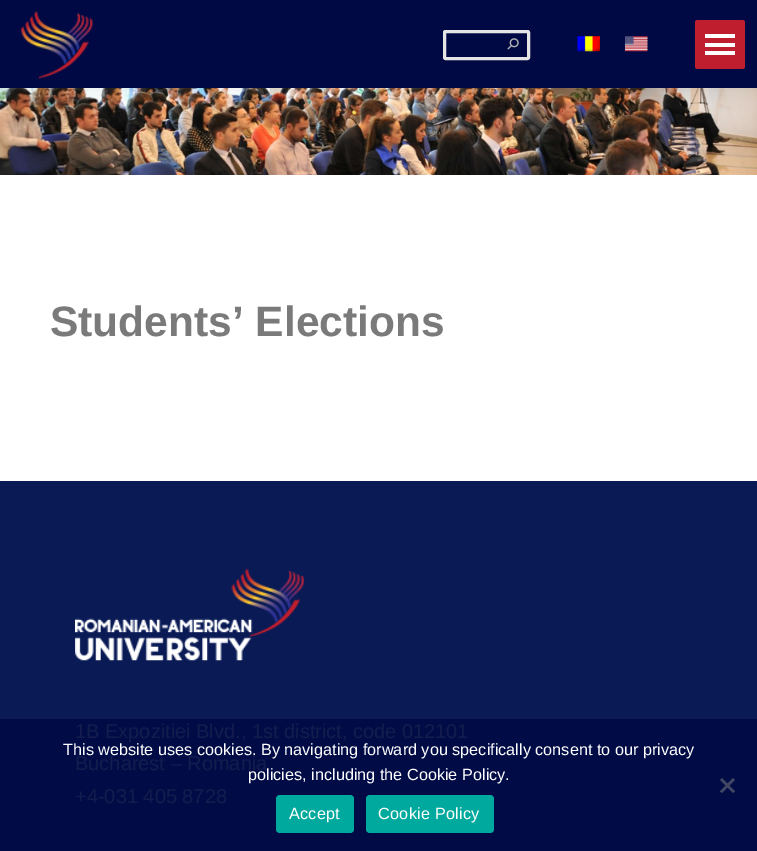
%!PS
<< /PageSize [757 851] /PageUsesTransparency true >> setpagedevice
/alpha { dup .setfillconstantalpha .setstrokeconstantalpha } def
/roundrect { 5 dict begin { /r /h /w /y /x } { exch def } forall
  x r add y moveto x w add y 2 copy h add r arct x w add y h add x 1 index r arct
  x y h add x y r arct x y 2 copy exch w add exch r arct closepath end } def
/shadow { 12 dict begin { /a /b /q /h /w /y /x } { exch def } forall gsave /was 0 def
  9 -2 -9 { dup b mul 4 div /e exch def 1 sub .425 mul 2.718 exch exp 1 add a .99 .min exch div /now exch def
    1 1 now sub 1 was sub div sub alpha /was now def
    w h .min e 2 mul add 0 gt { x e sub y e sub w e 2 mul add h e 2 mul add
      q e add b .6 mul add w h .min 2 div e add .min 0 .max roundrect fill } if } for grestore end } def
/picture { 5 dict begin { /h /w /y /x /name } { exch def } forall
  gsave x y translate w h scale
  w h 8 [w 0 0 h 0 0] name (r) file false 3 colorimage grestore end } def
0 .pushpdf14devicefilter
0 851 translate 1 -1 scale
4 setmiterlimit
1 setgray
0 0 757 851 rectfill
(img5.rgb) 0 88 757 87 picture
0 setgray
-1 -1 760 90 0 9.5 0.07 shadow
0 0.035 0.267 setrgbcolor
0 0 757 88 rectfill
(img1.rgb) 20 11 73 68 picture
0.898 setgray
3 setlinewidth
444.5 31.5 84 27 1 roundrect stroke
(img2.rgb) 507 38 12 12 picture
(img3.rgb) 577 36 23 16 picture
(img4.rgb) 625 36 23 16 picture
0.749 0.118 0.18 setrgbcolor
695 20 50 49 2.5 roundrect fill
1 setgray
705 34 30 4 rectfill
705 43 30 4 rectfill
705 51 30 4 rectfill
/LiberationSans-Bold [42.5 0 0 -42.5 0 0] selectfont
0.478 setgray
50 336 moveto (Students’ Elections) show
0.035 0.102 0.333 setrgbcolor
0 481 757 238 rectfill
0.004 0.047 0.278 setrgbcolor
0 719 757 132 rectfill
(img6.rgb) 75 568 229 93 picture
/LiberationSans-Regular [20 0 0 -20 0 0] selectfont
0.078 0.11 0.302 setrgbcolor
75 738 moveto (1B Expozitiei Blvd., 1st district, code 012101) show
75 770 moveto (Bucharest – Romania) show
75 803 moveto (+4-031 405 8728) show
/LiberationSans-Regular [16.25 0 0 -16.25 0 0] selectfont
1 setgray
63 755 moveto (This website uses cookies. By navigating forward you specifically consent to our privacy) show
248 780 moveto (policies, including the Cookie Policy.) show
0.255 0.275 0.388 setrgbcolor
newpath 733 778 moveto 735 780 lineto 722 793 lineto 720 791.5 lineto closepath fill
newpath 720 780 moveto 722 778 lineto 735 791.5 lineto 733 793 lineto closepath fill
0 0.663 0.616 setrgbcolor
276 795 78 38 4 roundrect fill
1 setgray
289 819 moveto 0.25 0 (Accept) ashow
0 0.663 0.616 setrgbcolor
366 795 128 38 4 roundrect fill
1 setgray
378 819 moveto 0.25 0 (Cookie Policy) ashow
.poppdf14devicefilter showpage
